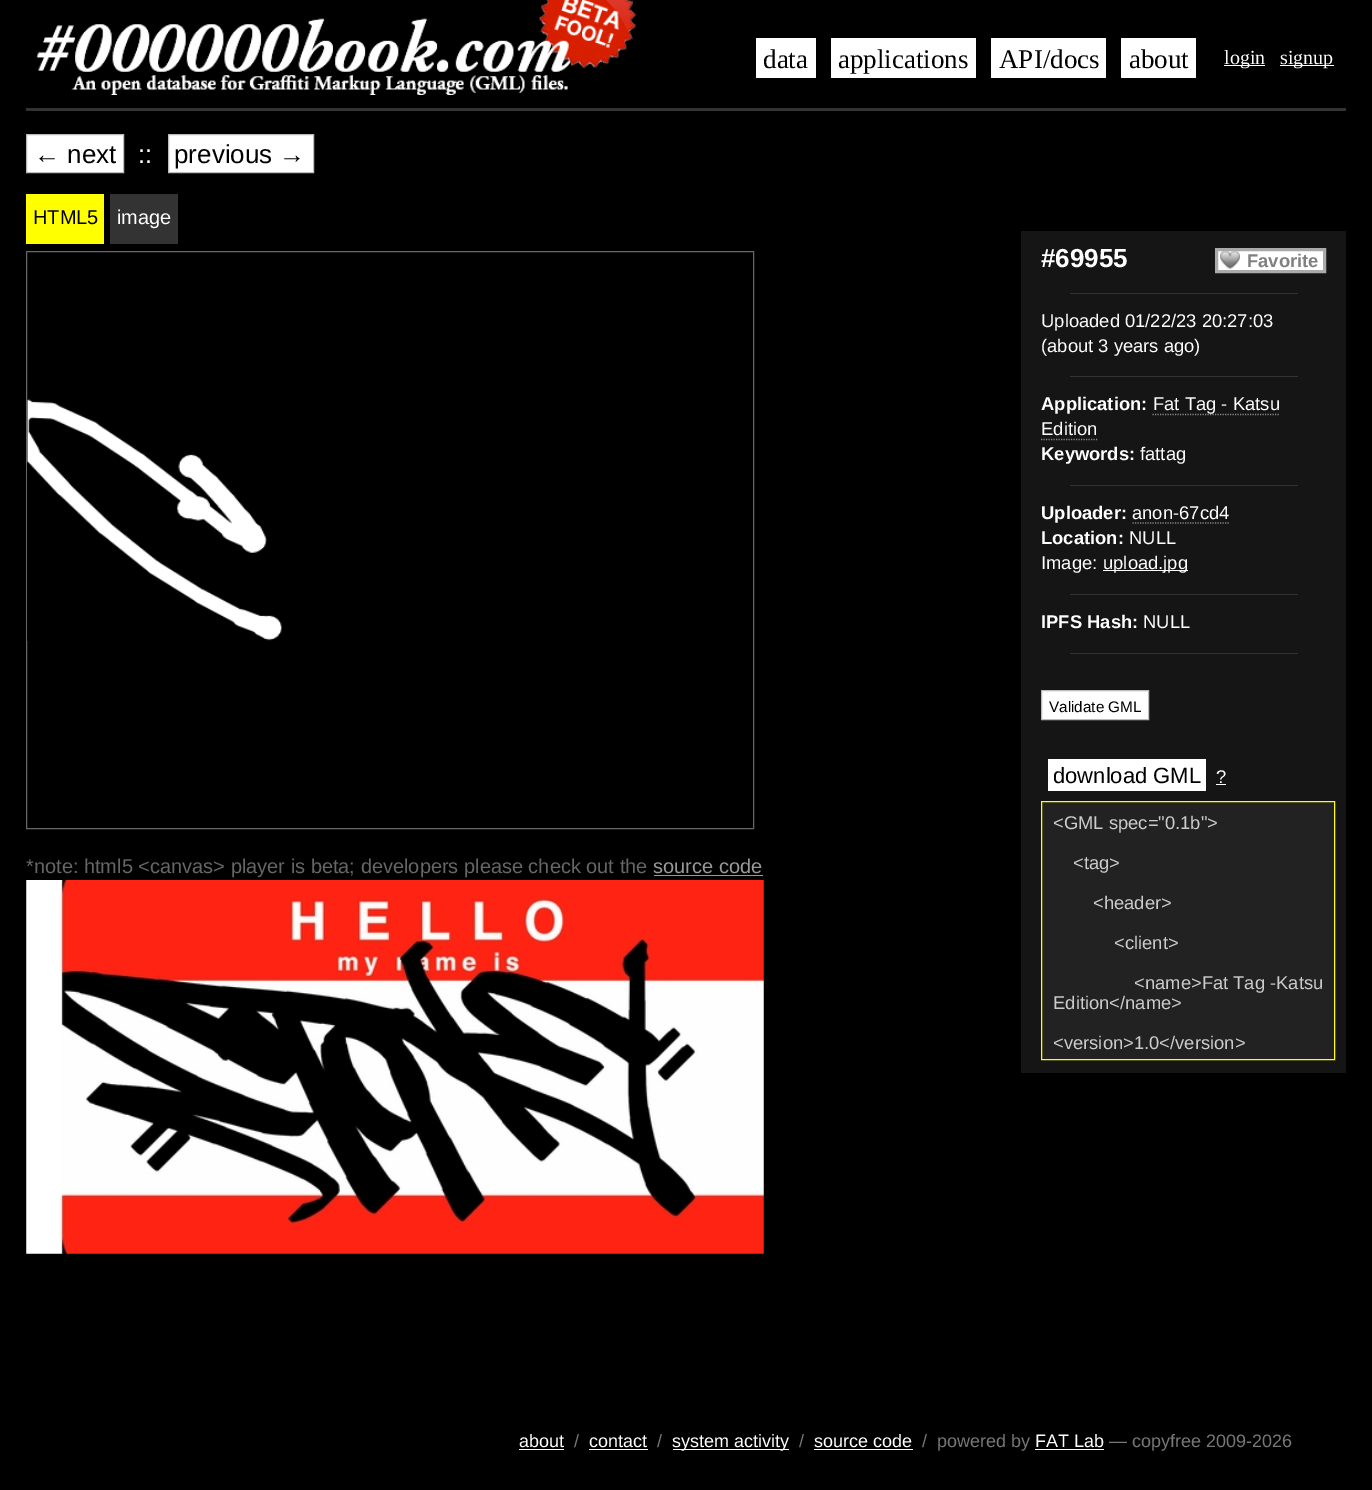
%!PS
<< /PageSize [1372 1490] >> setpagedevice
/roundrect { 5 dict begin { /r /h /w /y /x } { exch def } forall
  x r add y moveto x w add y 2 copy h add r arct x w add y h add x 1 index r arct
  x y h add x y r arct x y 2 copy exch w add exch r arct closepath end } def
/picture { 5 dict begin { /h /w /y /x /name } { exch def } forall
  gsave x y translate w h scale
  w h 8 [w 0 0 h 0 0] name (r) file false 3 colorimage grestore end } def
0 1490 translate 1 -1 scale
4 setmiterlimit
0 setgray
0 0 1372 1490 rectfill
0.2 setgray
26 108 1320 3 rectfill
(img1.rgb) 36 0 601 95 picture
1 setgray
756 38 60 40 1 roundrect fill
/LiberationSerif-Regular [27 0 0 -27 0 0] selectfont
0 setgray
763 68 moveto (data) show
1 setgray
831 38 145 40 1 roundrect fill
0 setgray
838 68 moveto (applications) show
1 setgray
991 38 115 40 1 roundrect fill
0 setgray
999 68 moveto (API/docs) show
1 setgray
1121 38 75 40 1 roundrect fill
0 setgray
1129 68 moveto (about) show
1 setgray
1224 65 41 1 rectfill
/LiberationSerif-Regular [20 0 0 -20 0 0] selectfont
1224 64 moveto (login) show
1280 65 54 1 rectfill
1280 64 moveto (signup) show
newpath 26.5 134.5 moveto 123.5 134.5 lineto 123.5 172.5 lineto 26.5 172.5 lineto closepath gsave fill grestore
0.733 setgray
stroke
/LiberationSans-Regular [26 0 0 -26 0 0] selectfont
0 setgray
34 163 moveto (← next) show
1 setgray
138 163 moveto (::) show
newpath 168.5 134.5 moveto 313.5 134.5 lineto 313.5 172.5 lineto 168.5 172.5 lineto closepath gsave fill grestore
0.733 setgray
stroke
0 setgray
174 163 moveto (previous →) show
1 1 0 setrgbcolor
26 194 78 50 rectfill
/LiberationSans-Regular [20 0 0 -20 0 0] selectfont
0 setgray
33 224 moveto (HTML5) show
0.2 setgray
110 194 68 50 rectfill
1 setgray
117 224 moveto (image) show
0.4 setgray
26.5 251.5 727 577 rectstroke
(img2.rgb) 27 399 256 242 picture
26 873 moveto (*note: html5 <canvas> player is beta; developers please check out the) show
0.6 setgray
653 873 moveto (source code) show
654 875 109 1 rectfill
(img3.rgb) 26 880 738 374 picture
0.082 setgray
1021 231 325 842 rectfill
/LiberationSans-Bold [26 0 0 -26 0 0] selectfont
1 setgray
1041 267 moveto (#69955) show
1218 251 105 19 rectfill
(img4.rgb) 1220 251 20 19 picture
0.667 setgray
3 setlinewidth
1216.5 249.5 108 22 rectstroke
/LiberationSans-Bold [18.4 0 0 -18.4 0 0] selectfont
0.502 setgray
1247 267 moveto (Favorite) show
0.2 setgray
1070 293 228 1 rectfill
/LiberationSans-Regular [18.4 0 0 -18.4 0 0] selectfont
1 setgray
1041 327 moveto (Uploaded 01/22/23 20:27:03) show
1041 352 moveto (\(about 3 years ago\)) show
0.2 setgray
1070 376 228 1 rectfill
/LiberationSans-Bold [18.4 0 0 -18.4 0 0] selectfont
1 setgray
1041 410 moveto (Application:) show
0.533 setgray
1.2 setlinewidth
[1.25 1.25] 0 setdash
newpath 1152.5 414.5 moveto 1280 414.5 lineto stroke
/LiberationSans-Regular [18.4 0 0 -18.4 0 0] selectfont
1 setgray
1153 410 moveto (Fat Tag - Katsu) show
1041 435 moveto (Edition) show
0.533 setgray
newpath 1041 439.5 moveto 1097.5 439.5 lineto stroke
/LiberationSans-Bold [18.4 0 0 -18.4 0 0] selectfont
1 setgray
1041 460 moveto (Keywords:) show
/LiberationSans-Regular [18.4 0 0 -18.4 0 0] selectfont
1140 460 moveto (fattag) show
0.2 setgray
1070 485 228 1 rectfill
/LiberationSans-Bold [18.4 0 0 -18.4 0 0] selectfont
1 setgray
1041 519 moveto (Uploader:) show
/LiberationSans-Regular [18.4 0 0 -18.4 0 0] selectfont
1132 519 moveto (anon-67cd4) show
0.533 setgray
newpath 1132.5 523 moveto 1230 523 lineto stroke
/LiberationSans-Bold [18.4 0 0 -18.4 0 0] selectfont
1 setgray
1041 544 moveto (Location:) show
/LiberationSans-Regular [18.4 0 0 -18.4 0 0] selectfont
1129 544 moveto (NULL) show
1041 569 moveto (Image:) show
1103 570 85 1 rectfill
1103 569 moveto (upload.jpg) show
0.2 setgray
1070 594 228 1 rectfill
/LiberationSans-Bold [18.4 0 0 -18.4 0 0] selectfont
1 setgray
1041 628 moveto (IPFS Hash:) show
/LiberationSans-Regular [18.4 0 0 -18.4 0 0] selectfont
1143 628 moveto (NULL) show
0.2 setgray
1070 653 228 1 rectfill
1 setgray
newpath 1041.5 690.5 moveto 1148.5 690.5 lineto 1148.5 719.5 lineto 1041.5 719.5 lineto closepath gsave fill grestore
0.733 setgray
1 setlinewidth
[] 0 setdash
stroke
/LiberationSans-Regular [15.25 0 0 -15.25 0 0] selectfont
0 setgray
1049 712 moveto (Validate GML) show
1 setgray
1048 759 158 32 rectfill
/LiberationSans-Regular [22 0 0 -22 0 0] selectfont
0 setgray
1053 783 moveto (download GML) show
/LiberationSans-Regular [18.4 0 0 -18.4 0 0] selectfont
1 setgray
1216 783 moveto (?) show
1216 784 10 1 rectfill
0.133 setgray
newpath 1041.5 801.5 moveto 1334.5 801.5 lineto 1334.5 1059.5 lineto 1041.5 1059.5 lineto closepath gsave fill grestore
1 1 0 setrgbcolor
stroke
0.8 setgray
1053 829 moveto (<GML spec="0.1b">) show
1073 869 moveto (<tag>) show
1093 909 moveto (<header>) show
1114 949 moveto (<client>) show
1134 989 moveto (<name>Fat Tag -Katsu) show
1053 1009 moveto (Edition</name>) show
1053 1049 moveto (<version>1.0</version>) show
/LiberationSans-Regular [18 0 0 -18 0 0] selectfont
1 setgray
519 1447 moveto (about) show
519 1449 45 1 rectfill
0.467 setgray
574 1447 moveto (/) show
1 setgray
589 1447 moveto (contact) show
589 1449 59 1 rectfill
0.467 setgray
657 1447 moveto (/) show
1 setgray
673 1449 116 1 rectfill
672 1447 moveto (system activity) show
0.467 setgray
799 1447 moveto (/) show
1 setgray
814 1447 moveto (source code) show
814 1449 99 1 rectfill
0.467 setgray
922 1447 moveto (/  powered by) show
1 setgray
1035 1447 moveto (FAT Lab) show
1035 1449 69 1 rectfill
0.467 setgray
1109 1447 moveto (— copyfree 2009-2026) show
showpage
